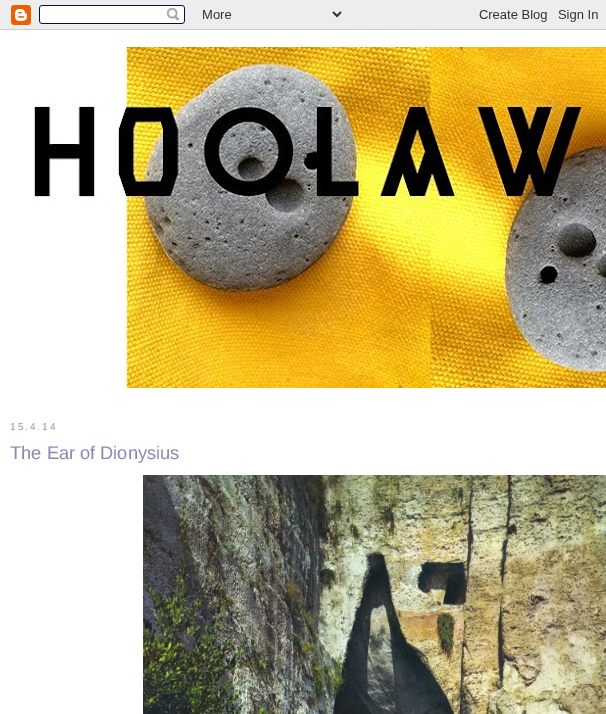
%!PS
<< /PageSize [606 714] >> setpagedevice
/picture { 5 dict begin { /h /w /y /x /name } { exch def } forall
  gsave x y translate w h scale
  w h 8 [w 0 0 h 0 0] name (r) file false 3 colorimage grestore end } def
0 714 translate 1 -1 scale
4 setmiterlimit
1 setgray
0 0 606 714 rectfill
(img1.rgb) 0 0 606 30 picture
(img2.rgb) 33 47 573 341 picture
/LiberationSans-Regular [10 0 0 -10 0 0] selectfont
0.6 setgray
10 430 moveto 2 0 (15.4.14) ashow
/LiberationSans-Regular [18.25 0 0 -18.25 0 0] selectfont
0.537 0.537 0.71 setrgbcolor
10 459 moveto (The Ear of Dionysius) show
(img3.rgb) 143 475 463 239 picture
showpage
